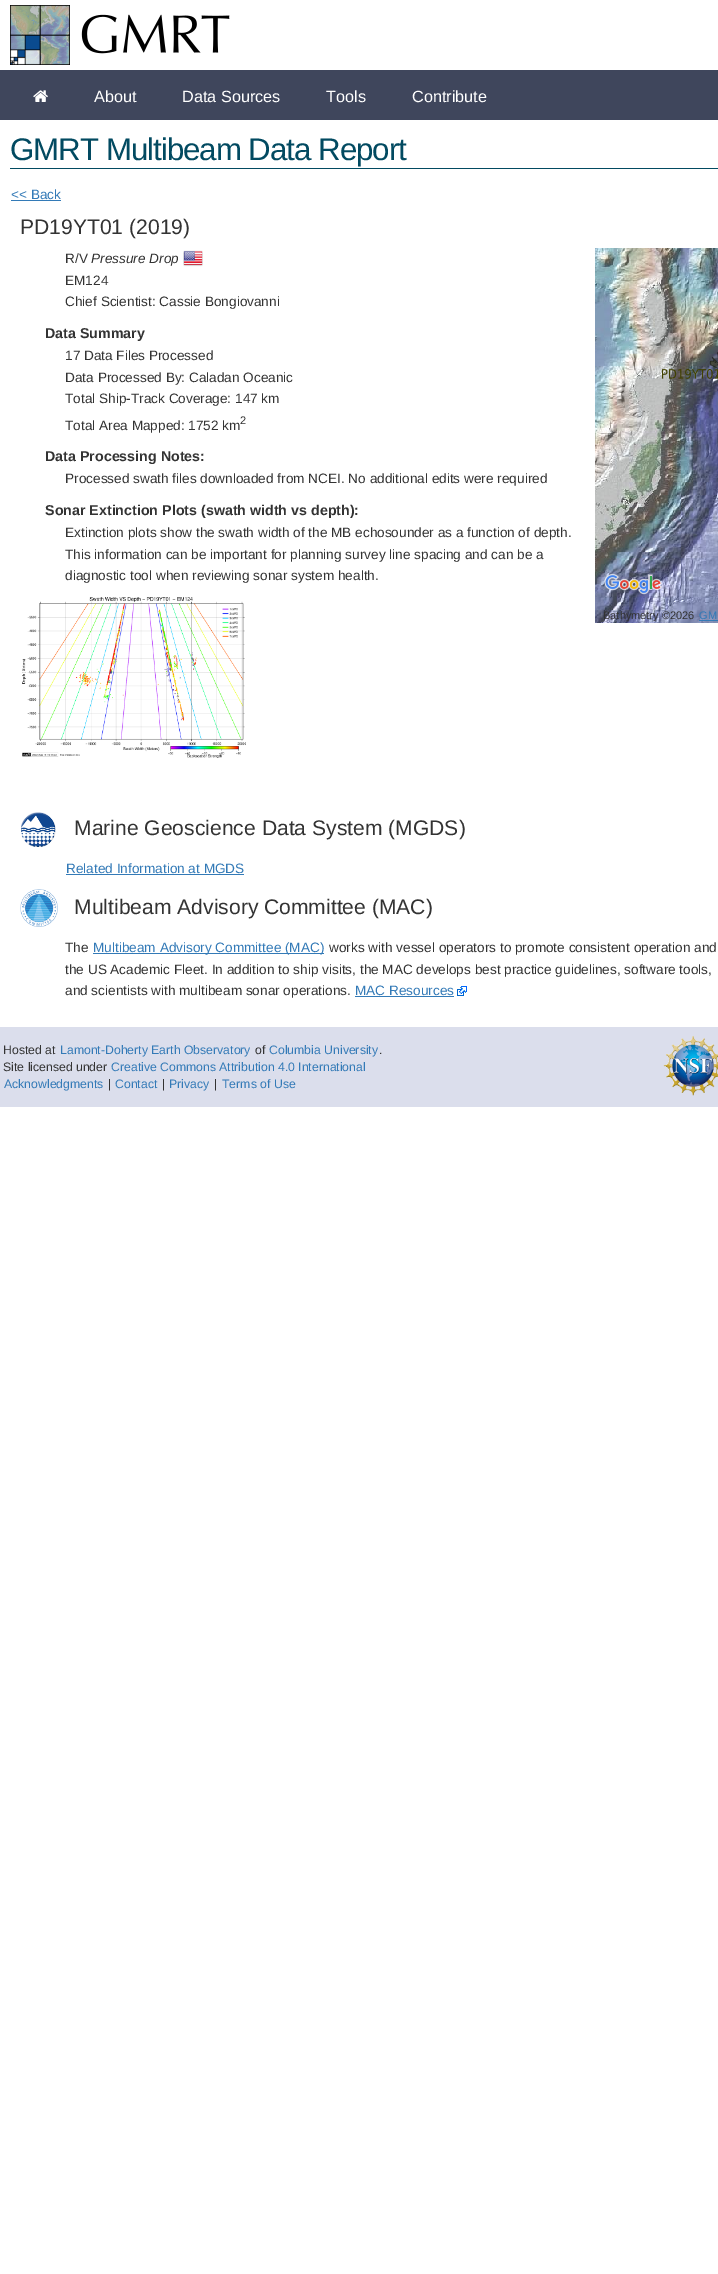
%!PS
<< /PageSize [718 2274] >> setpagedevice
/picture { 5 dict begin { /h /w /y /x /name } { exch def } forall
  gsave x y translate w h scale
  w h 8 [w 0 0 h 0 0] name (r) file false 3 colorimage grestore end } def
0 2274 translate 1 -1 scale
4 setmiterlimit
1 setgray
0 0 718 2274 rectfill
(img1.rgb) 10 5 60 60 picture
(img2.rgb) 81 14 149 40 picture
0.247 0.275 0.361 setrgbcolor
0 70 718 50 rectfill
(img3.rgb) 33 90 15 12 picture
/LiberationSans-Regular [16.25 0 0 -16.25 0 0] selectfont
1 setgray
94 102 moveto (About) show
182 102 moveto (Data Sources) show
326 102 moveto (Tools) show
412 102 moveto (Contribute) show
0.008 0.29 0.38 setrgbcolor
10 168 708 1 rectfill
/LiberationSans-Regular [31.25 0 0 -31.25 0 0] selectfont
10 160 moveto -1 0 (GMRT Multibeam Data Report) ashow
/LiberationSans-Regular [13.6 0 0 -13.6 0 0] selectfont
0.2 0.478 0.718 setrgbcolor
11 199 moveto (<< Back) show
11 200 50 1 rectfill
/LiberationSans-Regular [21.1 0 0 -21.1 0 0] selectfont
0.2 setgray
20 234 moveto (PD19YT01 \(2019\)) show
/LiberationSans-Regular [13.6 0 0 -13.6 0 0] selectfont
65 263 moveto (R/V) show
/LiberationSans-Italic [13.6 0 0 -13.6 0 0] selectfont
91 263 moveto (Pressure Drop) show
(img4.rgb) 183 250 20 17 picture
/LiberationSans-Regular [13.6 0 0 -13.6 0 0] selectfont
65 285 moveto (EM124) show
65 306 moveto (Chief Scientist: Cassie Bongiovanni) show
/LiberationSans-Bold [14.25 0 0 -14.25 0 0] selectfont
45 338 moveto (Data Summary) show
/LiberationSans-Regular [13.6 0 0 -13.6 0 0] selectfont
65 360 moveto (17 Data Files Processed) show
65 382 moveto (Data Processed By: Caladan Oceanic) show
65 403 moveto (Total Ship-Track Coverage: 147 km) show
65 430 moveto (Total Area Mapped: 1752 km) show
/LiberationSans-Regular [11 0 0 -11 0 0] selectfont
240 424 moveto (2) show
/LiberationSans-Bold [14.25 0 0 -14.25 0 0] selectfont
45 461 moveto (Data Processing Notes:) show
/LiberationSans-Regular [13.6 0 0 -13.6 0 0] selectfont
65 483 moveto (Processed swath files downloaded from NCEI. No additional edits were required) show
/LiberationSans-Bold [14.25 0 0 -14.25 0 0] selectfont
45 515 moveto (Sonar Extinction Plots \(swath width vs depth\):) show
/LiberationSans-Regular [13.6 0 0 -13.6 0 0] selectfont
65 537 moveto (Extinction plots show the swath width of the MB echosounder as a function of depth.) show
65 559 moveto (This information can be important for planning survey line spacing and can be a) show
65 580 moveto (diagnostic tool when reviewing sonar system health.) show
(img5.rgb) 22 597 224 161 picture
(img6.rgb) 595 248 123 48 picture
(img7.rgb) 595 296 123 256 picture
(img8.rgb) 595 552 123 71 picture
(img9.rgb) 662 352 56 27 picture
(img10.rgb) 604 573 58 22 picture
/LiberationSans-Regular [11 0 0 -11 0 0] selectfont
603 619 moveto (Bathymetry ©2026) show
0.2 0.478 0.718 setrgbcolor
699 619 moveto (GM) show
699 620 19 1 rectfill
(img11.rgb) 21 812 35 35 picture
/LiberationSans-Regular [21.1 0 0 -21.1 0 0] selectfont
0.2 setgray
74 835 moveto (Marine Geoscience Data System \(MGDS\)) show
/LiberationSans-Regular [13.6 0 0 -13.6 0 0] selectfont
0.2 0.478 0.718 setrgbcolor
66 873 moveto (Related Information at MGDS) show
66 874 178 1 rectfill
(img12.rgb) 20 889 38 38 picture
/LiberationSans-Regular [21.1 0 0 -21.1 0 0] selectfont
0.2 setgray
74 914 moveto (Multibeam Advisory Committee \(MAC\)) show
/LiberationSans-Regular [13.6 0 0 -13.6 0 0] selectfont
65 952 moveto (The) show
0.2 0.478 0.718 setrgbcolor
93 953 231 1 rectfill
93 952 moveto (Multibeam Advisory Committee \(MAC\)) show
0.2 setgray
329 952 moveto (works with vessel operators to promote consistent operation and) show
65 974 moveto (the US Academic Fleet. In addition to ship visits, the MAC develops best practice guidelines, software tools,) show
65 995 moveto (and scientists with multibeam sonar operations.) show
0.2 0.478 0.718 setrgbcolor
355 995 moveto (MAC Resources) show
355 996 99 1 rectfill
(img13.rgb) 457 986 10 10 picture
0.859 0.871 0.925 setrgbcolor
0 1027 718 80 rectfill
/LiberationSans-Regular [12.25 0 0 -12.25 0 0] selectfont
0.2 setgray
3 1054 moveto (Hosted at) show
0.2 0.478 0.718 setrgbcolor
60 1054 moveto (Lamont-Doherty Earth Observatory) show
0.2 setgray
255 1054 moveto (of) show
0.2 0.478 0.718 setrgbcolor
269 1054 moveto (Columbia University) show
0.2 setgray
379 1054 moveto (.) show
3 1071 moveto (Site licensed under) show
0.2 0.478 0.718 setrgbcolor
111 1071 moveto (Creative Commons Attribution 4.0 International) show
4 1088 moveto (Acknowledgments) show
0.2 setgray
108 1088 moveto (|) show
0.2 0.478 0.718 setrgbcolor
115 1088 moveto (Contact) show
0.2 setgray
162 1088 moveto (|) show
0.2 0.478 0.718 setrgbcolor
169 1088 moveto (Privacy) show
0.2 setgray
214 1088 moveto (|) show
0.2 0.478 0.718 setrgbcolor
222 1088 moveto (Terms of Use) show
(img14.rgb) 663 1035 55 61 picture
showpage
